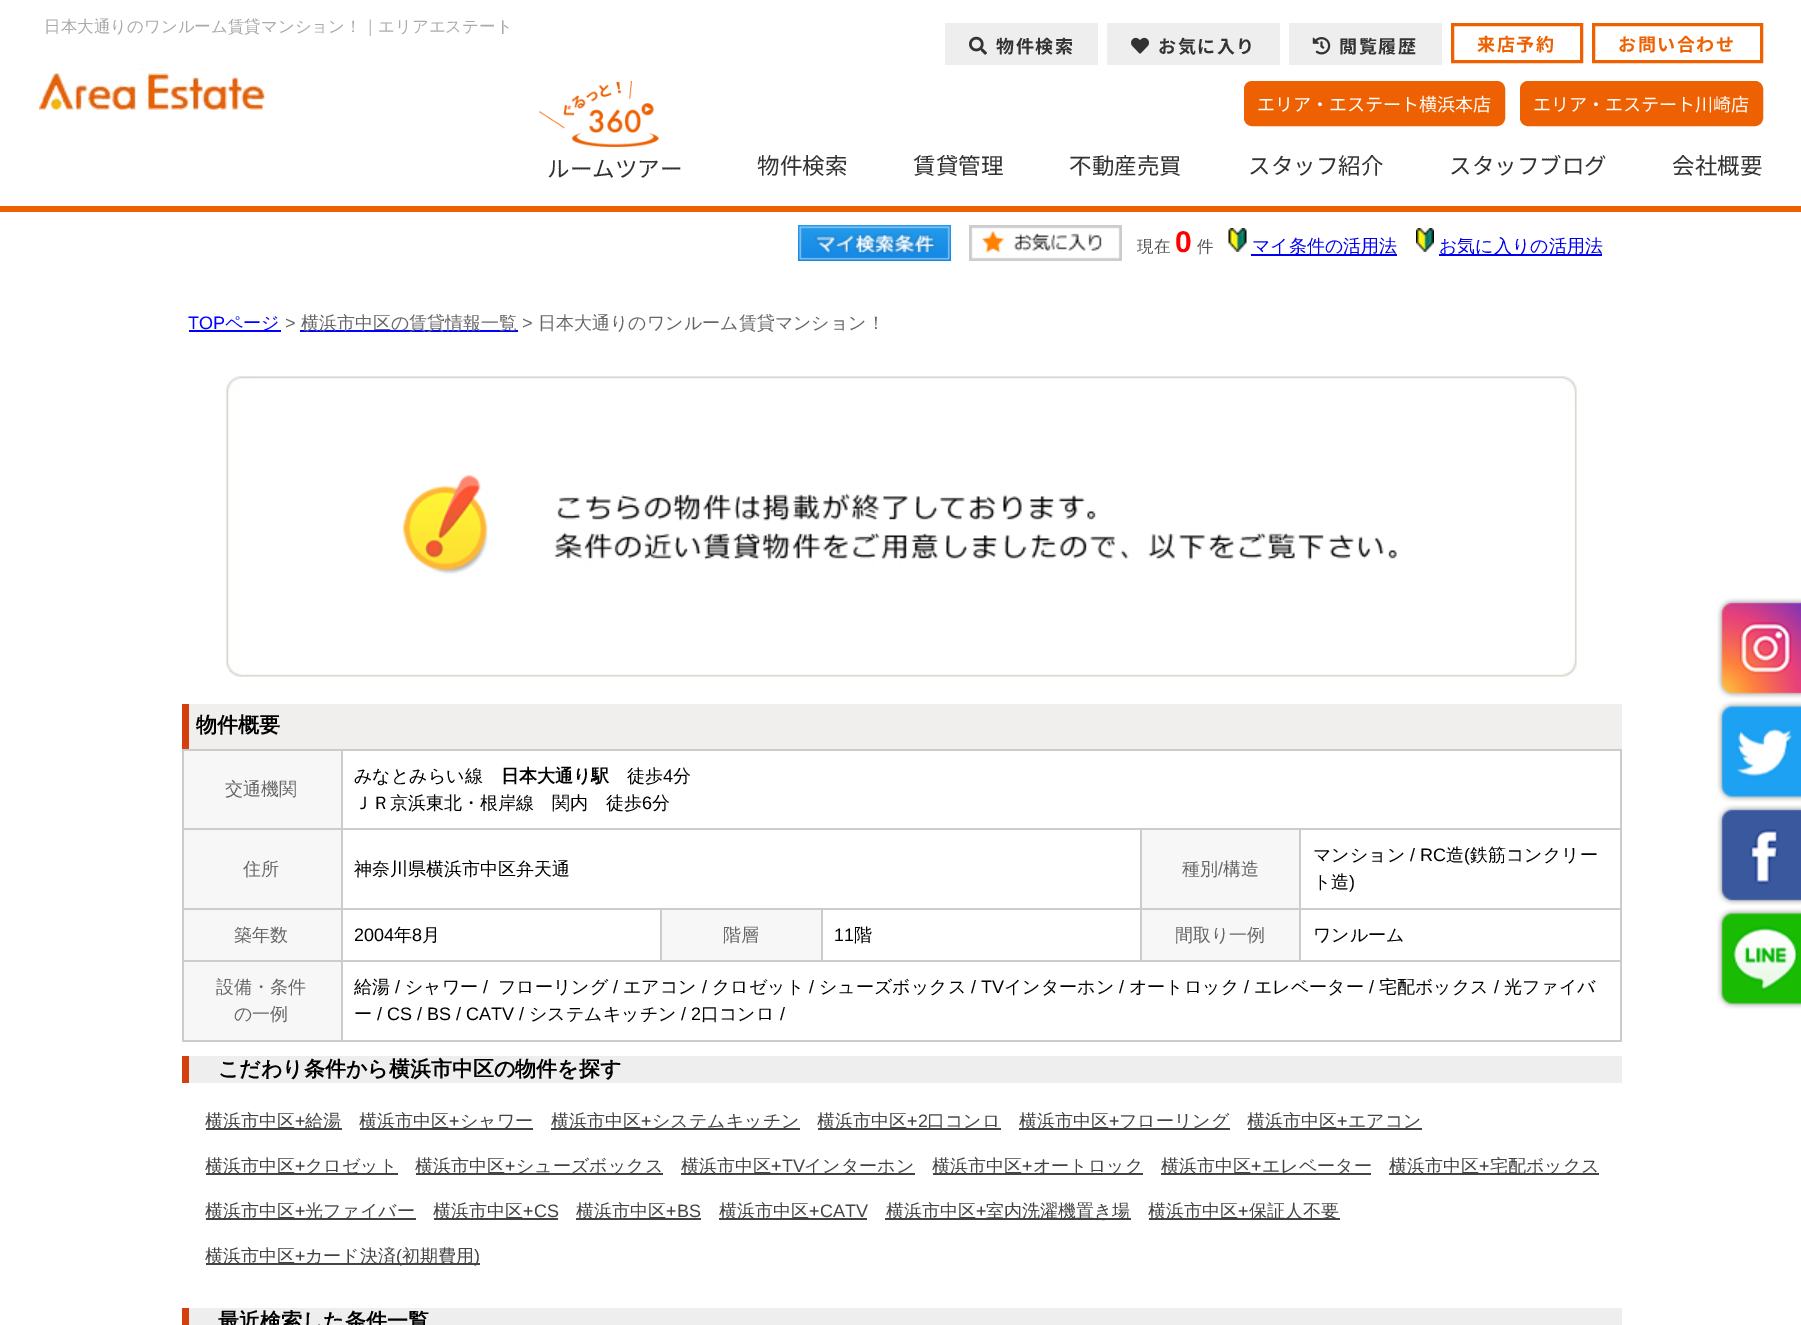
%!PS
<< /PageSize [1801 1325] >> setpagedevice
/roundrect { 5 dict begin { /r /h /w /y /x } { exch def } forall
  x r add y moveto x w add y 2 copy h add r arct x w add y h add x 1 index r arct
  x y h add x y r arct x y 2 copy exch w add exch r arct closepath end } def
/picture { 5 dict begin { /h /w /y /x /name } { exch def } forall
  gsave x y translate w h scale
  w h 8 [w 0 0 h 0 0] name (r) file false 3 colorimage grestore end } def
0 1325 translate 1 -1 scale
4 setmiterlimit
1 setgray
0 0 1801 1325 rectfill
/WenQuanYiZenHei-Medium [16.5 0 0 -16.5 0 0] selectfont
0.667 setgray
44 32 moveto (日本大通りのワンルーム賃貸マンション！｜エリアエステート) show
0.929 0.38 0.012 setrgbcolor
0 206 1801 6 rectfill
0.933 setgray
945 23 153 42 rectfill
(img1.rgb) 969 36 18 19 picture
/NotoSansJP-Bold [18 0 0 -18 0 0] selectfont
0.2 setgray
996 53 moveto 1.5 0 (物件検索) ashow
0.933 setgray
1107 23 173 42 rectfill
(img2.rgb) 1131 37 18 17 picture
0.2 setgray
1158 53 moveto 1.5 0 (お気に入り) ashow
0.933 setgray
1289 23 153 42 rectfill
(img3.rgb) 1312 37 19 18 picture
0.2 setgray
1339 53 moveto 1.5 0 (閲覧履歴) ashow
0.929 0.38 0.012 setrgbcolor
3 setlinewidth
1452.5 24.5 129 37 rectstroke
1477 51 moveto 1.5 0 (来店予約) ashow
1593.5 24.5 168 37 rectstroke
1618 51 moveto 1.5 0 (お問い合わせ) ashow
(img4.rgb) 39 68 227 42 picture
1245 82 259 43 7 roundrect gsave fill grestore
2 setlinewidth
stroke
/NotoSansJP-Regular [18 0 0 -18 0 0] selectfont
1 setgray
1257 111 moveto (エリア・エステート横浜本店) show
0.929 0.38 0.012 setrgbcolor
1521 82 241 43 7 roundrect gsave fill grestore
stroke
1 setgray
1533 111 moveto (エリア・エステート川崎店) show
(img5.rgb) 538 81 121 66 picture
/NotoSansJP-Regular [22.5 0 0 -22.5 0 0] selectfont
0.2 setgray
547 177 moveto (ルームツアー) show
757 174 moveto (物件検索) show
913 174 moveto (賃貸管理) show
1069 174 moveto (不動産売買) show
1248 174 moveto (スタッフ紹介) show
1449 174 moveto (スタッフブログ) show
1672 174 moveto (会社概要) show
(img6.rgb) 798 225 153 36 picture
(img7.rgb) 969 225 153 36 picture
/WenQuanYiZenHei-Medium [16.5 0 0 -16.5 0 0] selectfont
0.333 setgray
1137 252 moveto (現在) show
/LiberationSans-Bold [30 0 0 -30 0 0] selectfont
1 0 0 setrgbcolor
1175 252 moveto (0) show
/WenQuanYiZenHei-Medium [16.5 0 0 -16.5 0 0] selectfont
0.333 setgray
1197 252 moveto (件) show
(img8.rgb) 1228 228 19 24 picture
0 0 0.933 setrgbcolor
1251 254 146 2 rectfill
/WenQuanYiZenHei-Medium [18 0 0 -18 0 0] selectfont
1252 252 moveto (マイ条件の活用法) show
(img9.rgb) 1416 228 18 24 picture
1439 254 163 2 rectfill
1439 252 moveto (お気に入りの活用法) show
/LiberationSans-Regular [18 0 0 -18 0 0] selectfont
0 0 1 setrgbcolor
188 329 moveto (TOP) show
189 330 92 2 rectfill
/WenQuanYiZenHei-Medium [18 0 0 -18 0 0] selectfont
225 329 moveto (ページ) show
/LiberationSans-Regular [18 0 0 -18 0 0] selectfont
0.4 setgray
285 329 moveto (>) show
0 0 1 setrgbcolor
300 330 218 2 rectfill
/WenQuanYiZenHei-Medium [18 0 0 -18 0 0] selectfont
0.4 setgray
301 329 moveto (横浜市中区の賃貸情報一覧) show
/LiberationSans-Regular [18 0 0 -18 0 0] selectfont
522 329 moveto (>) show
/WenQuanYiZenHei-Medium [18 0 0 -18 0 0] selectfont
538 329 moveto (日本大通りのワンルーム賃貸マンション！) show
(img10.rgb) 226 376 1351 301 picture
0.945 0.937 0.933 setrgbcolor
189 704 1433 45 rectfill
0.827 0.247 0.059 setrgbcolor
182 704 7 45 rectfill
/WenQuanYiZenHei-Bold [21 0 0 -21 0 0] selectfont
0 setgray
196 732 moveto (物件概要) show
0.8 setgray
182 749 1440 2 rectfill
1620 749 2 292 rectfill
182 1040 1440 2 rectfill
182 749 2 292 rectfill
0.969 setgray
184 751 157 77 rectfill
/WenQuanYiZenHei-Medium [18 0 0 -18 0 0] selectfont
0.4 setgray
225 795 moveto (交通機関) show
0.8 setgray
1299 828 323 2 rectfill
1299 908 323 2 rectfill
341 960 1281 2 rectfill
1299 908 2 54 rectfill
1140 908 161 2 rectfill
1299 828 2 81 rectfill
1140 828 161 2 rectfill
1140 908 2 54 rectfill
821 908 321 2 rectfill
1140 828 2 81 rectfill
341 828 801 2 rectfill
821 908 2 54 rectfill
660 908 162 2 rectfill
660 908 2 54 rectfill
341 908 321 2 rectfill
341 960 2 81 rectfill
182 960 160 2 rectfill
341 908 2 54 rectfill
182 908 160 2 rectfill
341 828 2 81 rectfill
182 828 160 2 rectfill
341 749 2 81 rectfill
0 setgray
354 782 moveto (みなとみらい線) show
/WenQuanYiZenHei-Bold [18 0 0 -18 0 0] selectfont
501 782 moveto (日本大通り駅) show
/WenQuanYiZenHei-Medium [18 0 0 -18 0 0] selectfont
627 782 moveto (徒歩) show
/LiberationSans-Regular [18 0 0 -18 0 0] selectfont
663 782 moveto (4) show
/WenQuanYiZenHei-Medium [18 0 0 -18 0 0] selectfont
673 782 moveto (分) show
354 809 moveto (ＪＲ京浜東北・根岸線　関内　徒歩) show
/LiberationSans-Regular [18 0 0 -18 0 0] selectfont
642 809 moveto (6) show
/WenQuanYiZenHei-Medium [18 0 0 -18 0 0] selectfont
652 809 moveto (分) show
0.969 setgray
184 830 157 78 rectfill
0.4 setgray
243 875 moveto (住所) show
0 setgray
354 875 moveto (神奈川県横浜市中区弁天通) show
0.969 setgray
1142 830 157 78 rectfill
0.4 setgray
1182 875 moveto (種別) show
/LiberationSans-Regular [18 0 0 -18 0 0] selectfont
1218 875 moveto (/) show
/WenQuanYiZenHei-Medium [18 0 0 -18 0 0] selectfont
1223 875 moveto (構造) show
0 setgray
1313 861 moveto (マンション) show
/LiberationSans-Regular [18 0 0 -18 0 0] selectfont
1410 861 moveto (/ RC) show
/WenQuanYiZenHei-Medium [18 0 0 -18 0 0] selectfont
1446 861 moveto (造) show
/LiberationSans-Regular [18 0 0 -18 0 0] selectfont
1464 861 moveto (\() show
/WenQuanYiZenHei-Medium [18 0 0 -18 0 0] selectfont
1470 861 moveto (鉄筋コンクリー) show
1313 888 moveto (ト造) show
/LiberationSans-Regular [18 0 0 -18 0 0] selectfont
1349 888 moveto (\)) show
0.969 setgray
184 910 157 50 rectfill
/WenQuanYiZenHei-Medium [18 0 0 -18 0 0] selectfont
0.4 setgray
234 941 moveto (築年数) show
/LiberationSans-Regular [18 0 0 -18 0 0] selectfont
0 setgray
354 941 moveto (2004) show
/WenQuanYiZenHei-Medium [18 0 0 -18 0 0] selectfont
394 941 moveto (年) show
/LiberationSans-Regular [18 0 0 -18 0 0] selectfont
412 941 moveto (8) show
/WenQuanYiZenHei-Medium [18 0 0 -18 0 0] selectfont
422 941 moveto (月) show
0.969 setgray
662 910 159 50 rectfill
0.4 setgray
723 941 moveto (階層) show
/LiberationSans-Regular [18 0 0 -18 0 0] selectfont
0 setgray
834 941 moveto (11) show
/WenQuanYiZenHei-Medium [18 0 0 -18 0 0] selectfont
854 941 moveto (階) show
0.969 setgray
1142 910 157 50 rectfill
0.4 setgray
1175 941 moveto (間取り一例) show
0 setgray
1313 941 moveto (ワンルーム) show
0.969 setgray
184 962 157 78 rectfill
0.4 setgray
216 993 moveto (設備・条件) show
234 1020 moveto (の一例) show
0 setgray
354 993 moveto (給湯) show
/LiberationSans-Regular [18 0 0 -18 0 0] selectfont
395 993 moveto (/) show
/WenQuanYiZenHei-Medium [18 0 0 -18 0 0] selectfont
405 993 moveto (シャワー) show
/LiberationSans-Regular [18 0 0 -18 0 0] selectfont
483 993 moveto (/) show
/WenQuanYiZenHei-Medium [18 0 0 -18 0 0] selectfont
498 993 moveto (フローリング) show
/LiberationSans-Regular [18 0 0 -18 0 0] selectfont
613 993 moveto (/) show
/WenQuanYiZenHei-Medium [18 0 0 -18 0 0] selectfont
623 993 moveto (エアコン) show
/LiberationSans-Regular [18 0 0 -18 0 0] selectfont
702 993 moveto (/) show
/WenQuanYiZenHei-Medium [18 0 0 -18 0 0] selectfont
712 993 moveto (クロゼット) show
/LiberationSans-Regular [18 0 0 -18 0 0] selectfont
809 993 moveto (/) show
/WenQuanYiZenHei-Medium [18 0 0 -18 0 0] selectfont
819 993 moveto (シューズボックス) show
/LiberationSans-Regular [18 0 0 -18 0 0] selectfont
971 993 moveto (/ TV) show
/WenQuanYiZenHei-Medium [18 0 0 -18 0 0] selectfont
1004 993 moveto (インターホン) show
/LiberationSans-Regular [18 0 0 -18 0 0] selectfont
1119 993 moveto (/) show
/WenQuanYiZenHei-Medium [18 0 0 -18 0 0] selectfont
1129 993 moveto (オートロック) show
/LiberationSans-Regular [18 0 0 -18 0 0] selectfont
1244 993 moveto (/) show
/WenQuanYiZenHei-Medium [18 0 0 -18 0 0] selectfont
1254 993 moveto (エレベーター) show
/LiberationSans-Regular [18 0 0 -18 0 0] selectfont
1369 993 moveto (/) show
/WenQuanYiZenHei-Medium [18 0 0 -18 0 0] selectfont
1379 993 moveto (宅配ボックス) show
/LiberationSans-Regular [18 0 0 -18 0 0] selectfont
1494 993 moveto (/) show
/WenQuanYiZenHei-Medium [18 0 0 -18 0 0] selectfont
1504 993 moveto (光ファイバ) show
354 1020 moveto (ー) show
/LiberationSans-Regular [18 0 0 -18 0 0] selectfont
377 1020 moveto (/ CS / BS / CATV /) show
/WenQuanYiZenHei-Medium [18 0 0 -18 0 0] selectfont
529 1020 moveto (システムキッチン) show
/LiberationSans-Regular [18 0 0 -18 0 0] selectfont
681 1020 moveto (/ 2) show
/WenQuanYiZenHei-Medium [18 0 0 -18 0 0] selectfont
701 1020 moveto (口コンロ) show
/LiberationSans-Regular [18 0 0 -18 0 0] selectfont
780 1020 moveto (/) show
0.933 setgray
189 1056 1433 27 rectfill
0.827 0.247 0.059 setrgbcolor
182 1056 7 27 rectfill
/WenQuanYiZenHei-Bold [21 0 0 -21 0 0] selectfont
0 setgray
218 1076 moveto (こだわり条件から横浜市中区の物件を探す) show
0.267 setgray
206 1128 136 2 rectfill
/WenQuanYiZenHei-Medium [18 0 0 -18 0 0] selectfont
205 1127 moveto (横浜市中区) show
/LiberationSans-Regular [18 0 0 -18 0 0] selectfont
295 1127 moveto (+) show
/WenQuanYiZenHei-Medium [18 0 0 -18 0 0] selectfont
305 1127 moveto (給湯) show
360 1128 173 2 rectfill
359 1127 moveto (横浜市中区) show
/LiberationSans-Regular [18 0 0 -18 0 0] selectfont
449 1127 moveto (+) show
/WenQuanYiZenHei-Medium [18 0 0 -18 0 0] selectfont
460 1127 moveto (シャワー) show
551 1128 249 2 rectfill
551 1127 moveto (横浜市中区) show
/LiberationSans-Regular [18 0 0 -18 0 0] selectfont
641 1127 moveto (+) show
/WenQuanYiZenHei-Medium [18 0 0 -18 0 0] selectfont
652 1127 moveto (システムキッチン) show
818 1128 183 2 rectfill
817 1127 moveto (横浜市中区) show
/LiberationSans-Regular [18 0 0 -18 0 0] selectfont
907 1127 moveto (+2) show
/WenQuanYiZenHei-Medium [18 0 0 -18 0 0] selectfont
927 1127 moveto (口コンロ) show
1019 1128 211 2 rectfill
1019 1127 moveto (横浜市中区) show
/LiberationSans-Regular [18 0 0 -18 0 0] selectfont
1109 1127 moveto (+) show
/WenQuanYiZenHei-Medium [18 0 0 -18 0 0] selectfont
1119 1127 moveto (フローリング) show
1248 1128 174 2 rectfill
1247 1127 moveto (横浜市中区) show
/LiberationSans-Regular [18 0 0 -18 0 0] selectfont
1337 1127 moveto (+) show
/WenQuanYiZenHei-Medium [18 0 0 -18 0 0] selectfont
1348 1127 moveto (エアコン) show
206 1173 192 2 rectfill
205 1172 moveto (横浜市中区) show
/LiberationSans-Regular [18 0 0 -18 0 0] selectfont
295 1172 moveto (+) show
/WenQuanYiZenHei-Medium [18 0 0 -18 0 0] selectfont
305 1172 moveto (クロゼット) show
416 1173 247 2 rectfill
415 1172 moveto (横浜市中区) show
/LiberationSans-Regular [18 0 0 -18 0 0] selectfont
505 1172 moveto (+) show
/WenQuanYiZenHei-Medium [18 0 0 -18 0 0] selectfont
516 1172 moveto (シューズボックス) show
681 1173 234 2 rectfill
681 1172 moveto (横浜市中区) show
/LiberationSans-Regular [18 0 0 -18 0 0] selectfont
771 1172 moveto (+TV) show
/WenQuanYiZenHei-Medium [18 0 0 -18 0 0] selectfont
804 1172 moveto (インターホン) show
933 1173 210 2 rectfill
932 1172 moveto (横浜市中区) show
/LiberationSans-Regular [18 0 0 -18 0 0] selectfont
1022 1172 moveto (+) show
/WenQuanYiZenHei-Medium [18 0 0 -18 0 0] selectfont
1033 1172 moveto (オートロック) show
1161 1173 210 2 rectfill
1161 1172 moveto (横浜市中区) show
/LiberationSans-Regular [18 0 0 -18 0 0] selectfont
1251 1172 moveto (+) show
/WenQuanYiZenHei-Medium [18 0 0 -18 0 0] selectfont
1262 1172 moveto (エレベーター) show
1389 1173 210 2 rectfill
1389 1172 moveto (横浜市中区) show
/LiberationSans-Regular [18 0 0 -18 0 0] selectfont
1479 1172 moveto (+) show
/WenQuanYiZenHei-Medium [18 0 0 -18 0 0] selectfont
1490 1172 moveto (宅配ボックス) show
206 1218 210 2 rectfill
205 1217 moveto (横浜市中区) show
/LiberationSans-Regular [18 0 0 -18 0 0] selectfont
295 1217 moveto (+) show
/WenQuanYiZenHei-Medium [18 0 0 -18 0 0] selectfont
305 1217 moveto (光ファイバー) show
434 1218 124 2 rectfill
433 1217 moveto (横浜市中区) show
/LiberationSans-Regular [18 0 0 -18 0 0] selectfont
523 1217 moveto (+CS) show
576 1218 125 2 rectfill
/WenQuanYiZenHei-Medium [18 0 0 -18 0 0] selectfont
576 1217 moveto (横浜市中区) show
/LiberationSans-Regular [18 0 0 -18 0 0] selectfont
666 1217 moveto (+BS) show
719 1218 148 2 rectfill
/WenQuanYiZenHei-Medium [18 0 0 -18 0 0] selectfont
719 1217 moveto (横浜市中区) show
/LiberationSans-Regular [18 0 0 -18 0 0] selectfont
809 1217 moveto (+CATV) show
885 1218 246 2 rectfill
/WenQuanYiZenHei-Medium [18 0 0 -18 0 0] selectfont
886 1217 moveto (横浜市中区) show
/LiberationSans-Regular [18 0 0 -18 0 0] selectfont
976 1217 moveto (+) show
/WenQuanYiZenHei-Medium [18 0 0 -18 0 0] selectfont
986 1217 moveto (室内洗濯機置き場) show
1149 1218 191 2 rectfill
1148 1217 moveto (横浜市中区) show
/LiberationSans-Regular [18 0 0 -18 0 0] selectfont
1238 1217 moveto (+) show
/WenQuanYiZenHei-Medium [18 0 0 -18 0 0] selectfont
1249 1217 moveto (保証人不要) show
206 1263 274 2 rectfill
205 1262 moveto (横浜市中区) show
/LiberationSans-Regular [18 0 0 -18 0 0] selectfont
295 1262 moveto (+) show
/WenQuanYiZenHei-Medium [18 0 0 -18 0 0] selectfont
305 1262 moveto (カード決済) show
/LiberationSans-Regular [18 0 0 -18 0 0] selectfont
396 1262 moveto (\() show
/WenQuanYiZenHei-Medium [18 0 0 -18 0 0] selectfont
402 1262 moveto (初期費用) show
/LiberationSans-Regular [18 0 0 -18 0 0] selectfont
474 1262 moveto (\)) show
0.933 setgray
189 1308 1433 17 rectfill
0.827 0.247 0.059 setrgbcolor
182 1308 7 17 rectfill
/WenQuanYiZenHei-Bold [21 0 0 -21 0 0] selectfont
0 setgray
218 1328 moveto (最近検索した条件一覧) show
(img11.rgb) 1717 598 84 100 picture
(img12.rgb) 1717 701 84 101 picture
(img13.rgb) 1717 805 84 100 picture
(img14.rgb) 1717 908 84 101 picture
showpage
